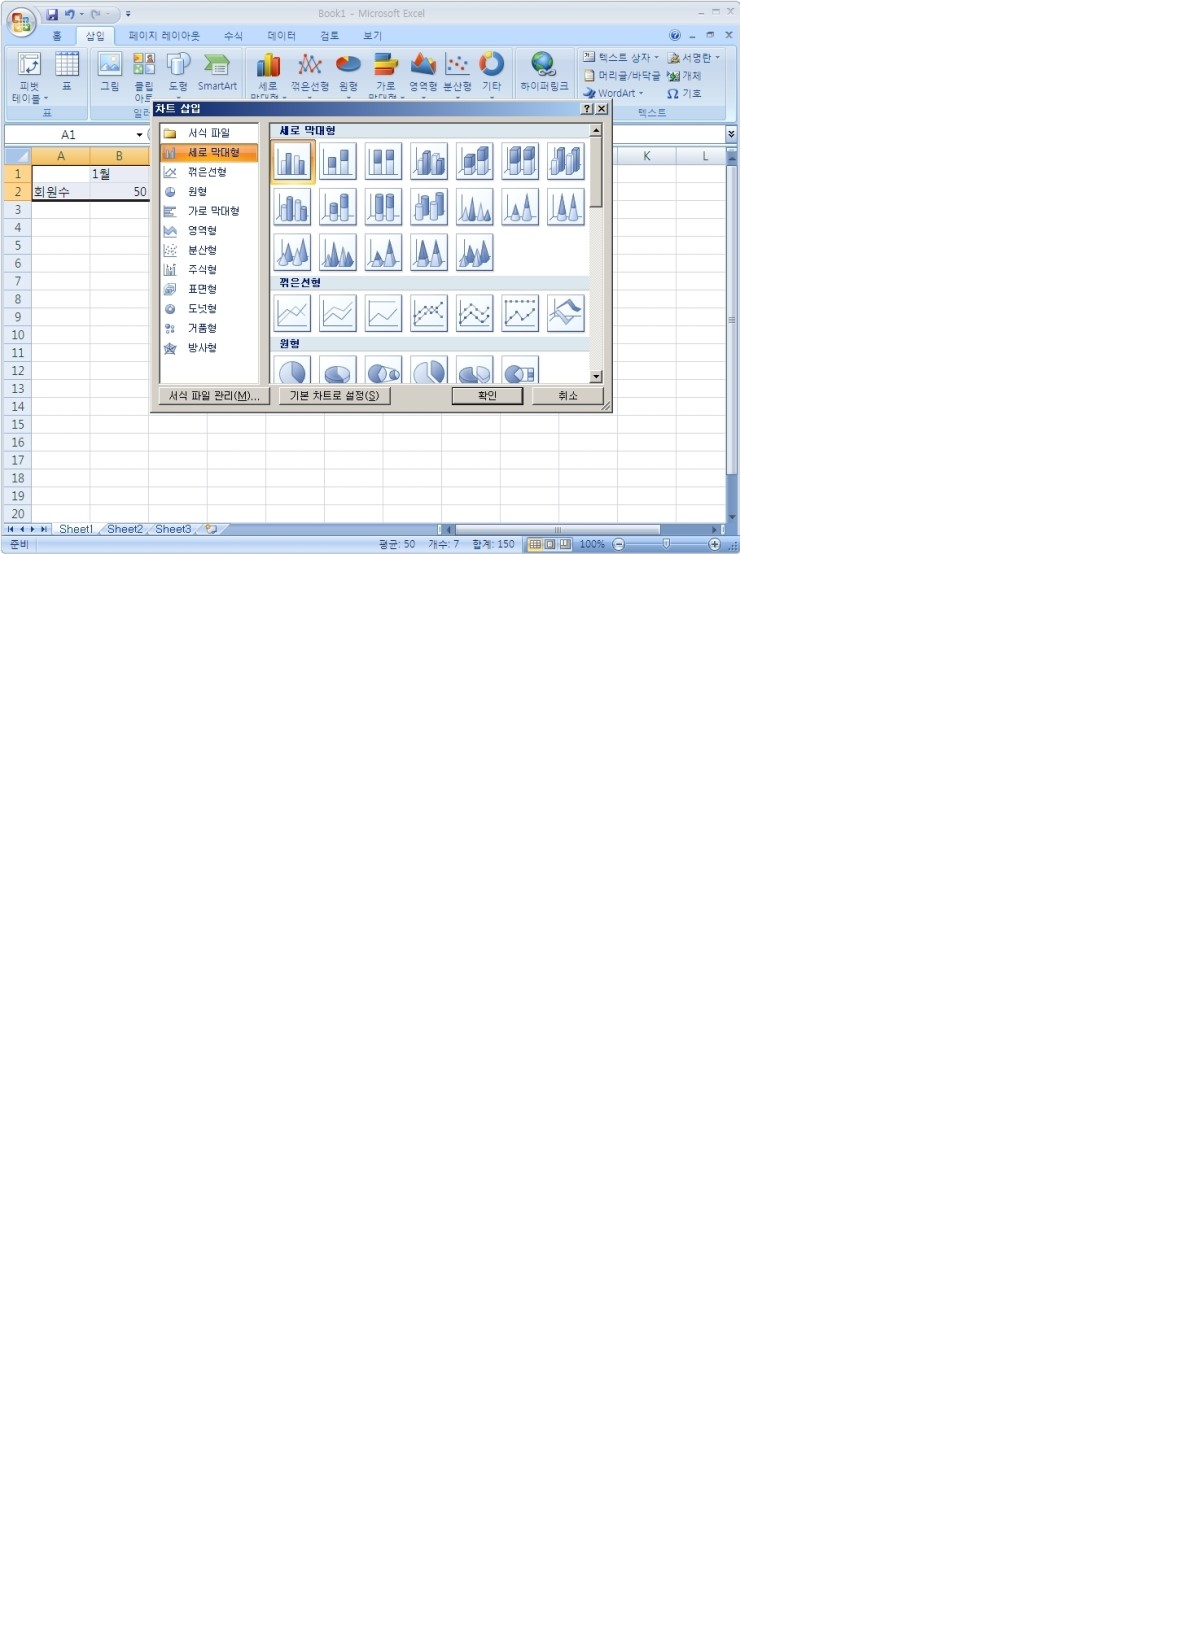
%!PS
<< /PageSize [1202 1647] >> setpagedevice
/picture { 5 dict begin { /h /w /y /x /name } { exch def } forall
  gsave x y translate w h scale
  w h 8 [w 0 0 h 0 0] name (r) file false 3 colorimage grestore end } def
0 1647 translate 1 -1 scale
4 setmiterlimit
1 setgray
0 0 1202 1647 rectfill
(img1.rgb) 0 0 740 554 picture
showpage
